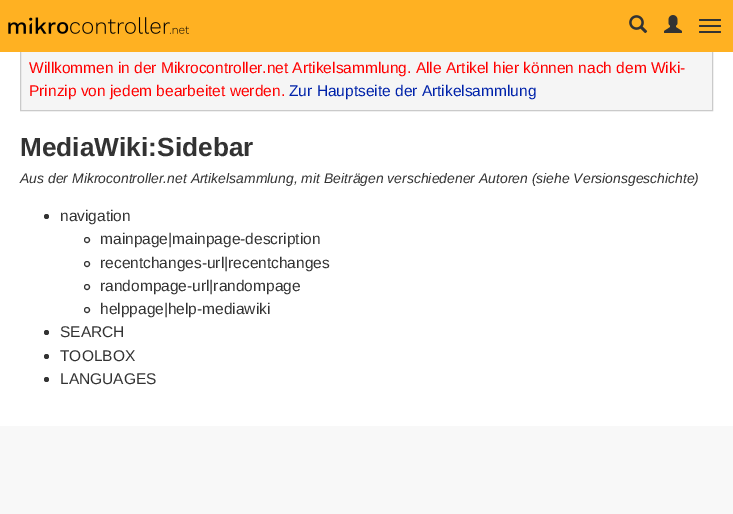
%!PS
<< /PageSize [733 514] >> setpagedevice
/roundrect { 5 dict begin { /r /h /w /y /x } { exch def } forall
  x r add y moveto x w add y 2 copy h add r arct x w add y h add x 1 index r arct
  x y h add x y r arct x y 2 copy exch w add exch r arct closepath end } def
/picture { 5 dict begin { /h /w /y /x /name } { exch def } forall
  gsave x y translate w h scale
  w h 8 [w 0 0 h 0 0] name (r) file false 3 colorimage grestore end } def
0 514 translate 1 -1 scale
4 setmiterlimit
0.973 setgray
0 0 733 514 rectfill
1 setgray
0 52 733 374 rectfill
0.961 setgray
21 52 691 58 rectfill
0.792 setgray
20.5 47.5 692 63 rectstroke
1 0.694 0.133 setrgbcolor
0 0 733 52 rectfill
(img1.rgb) 8 17 181 17 picture
(img2.rgb) 629 15 19 19 picture
(img3.rgb) 664 15 18 18 picture
0.2 setgray
699 19 22 2 1 roundrect fill
699 25 22 2 1 roundrect fill
699 31 22 2 1 roundrect fill
/LiberationSans-Regular [15.5 0 0 -15.5 0 0] selectfont
1 0 0 setrgbcolor
29 73 moveto (Willkommen in der Mikrocontroller.net Artikelsammlung. Alle Artikel hier können nach dem Wiki-) show
29 96 moveto (Prinzip von jedem bearbeitet werden.) show
0 0.133 0.667 setrgbcolor
289 96 moveto (Zur Hauptseite der Artikelsammlung) show
/LiberationSans-Bold [26.25 0 0 -26.25 0 0] selectfont
0.2 setgray
20 156 moveto (MediaWiki:Sidebar) show
/LiberationSans-Italic [13.95 0 0 -13.95 0 0] selectfont
20 183 moveto (Aus der Mikrocontroller.net Artikelsammlung, mit Beiträgen verschiedener Autoren \(siehe Versionsgeschichte\)) show
newpath 46.5 216.5 2.5 0 360 arc closepath fill
/LiberationSans-Regular [15.5 0 0 -15.5 0 0] selectfont
60 221 moveto (navigation) show
newpath 87 240 2.5 0 360 arc closepath stroke
100 244 moveto (mainpage|mainpage-description) show
newpath 87 264 2.5 0 360 arc closepath stroke
100 268 moveto (recentchanges-url|recentchanges) show
newpath 87 287 2.5 0 360 arc closepath stroke
100 291 moveto (randompage-url|randompage) show
newpath 87 310 2.5 0 360 arc closepath stroke
100 314 moveto (helppage|help-mediawiki) show
newpath 46.5 332.5 2.5 0 360 arc closepath fill
60 337 moveto (SEARCH) show
newpath 46.5 356.5 2.5 0 360 arc closepath fill
60 361 moveto (TOOLBOX) show
newpath 46.5 379.5 2.5 0 360 arc closepath fill
60 384 moveto (LANGUAGES) show
showpage
